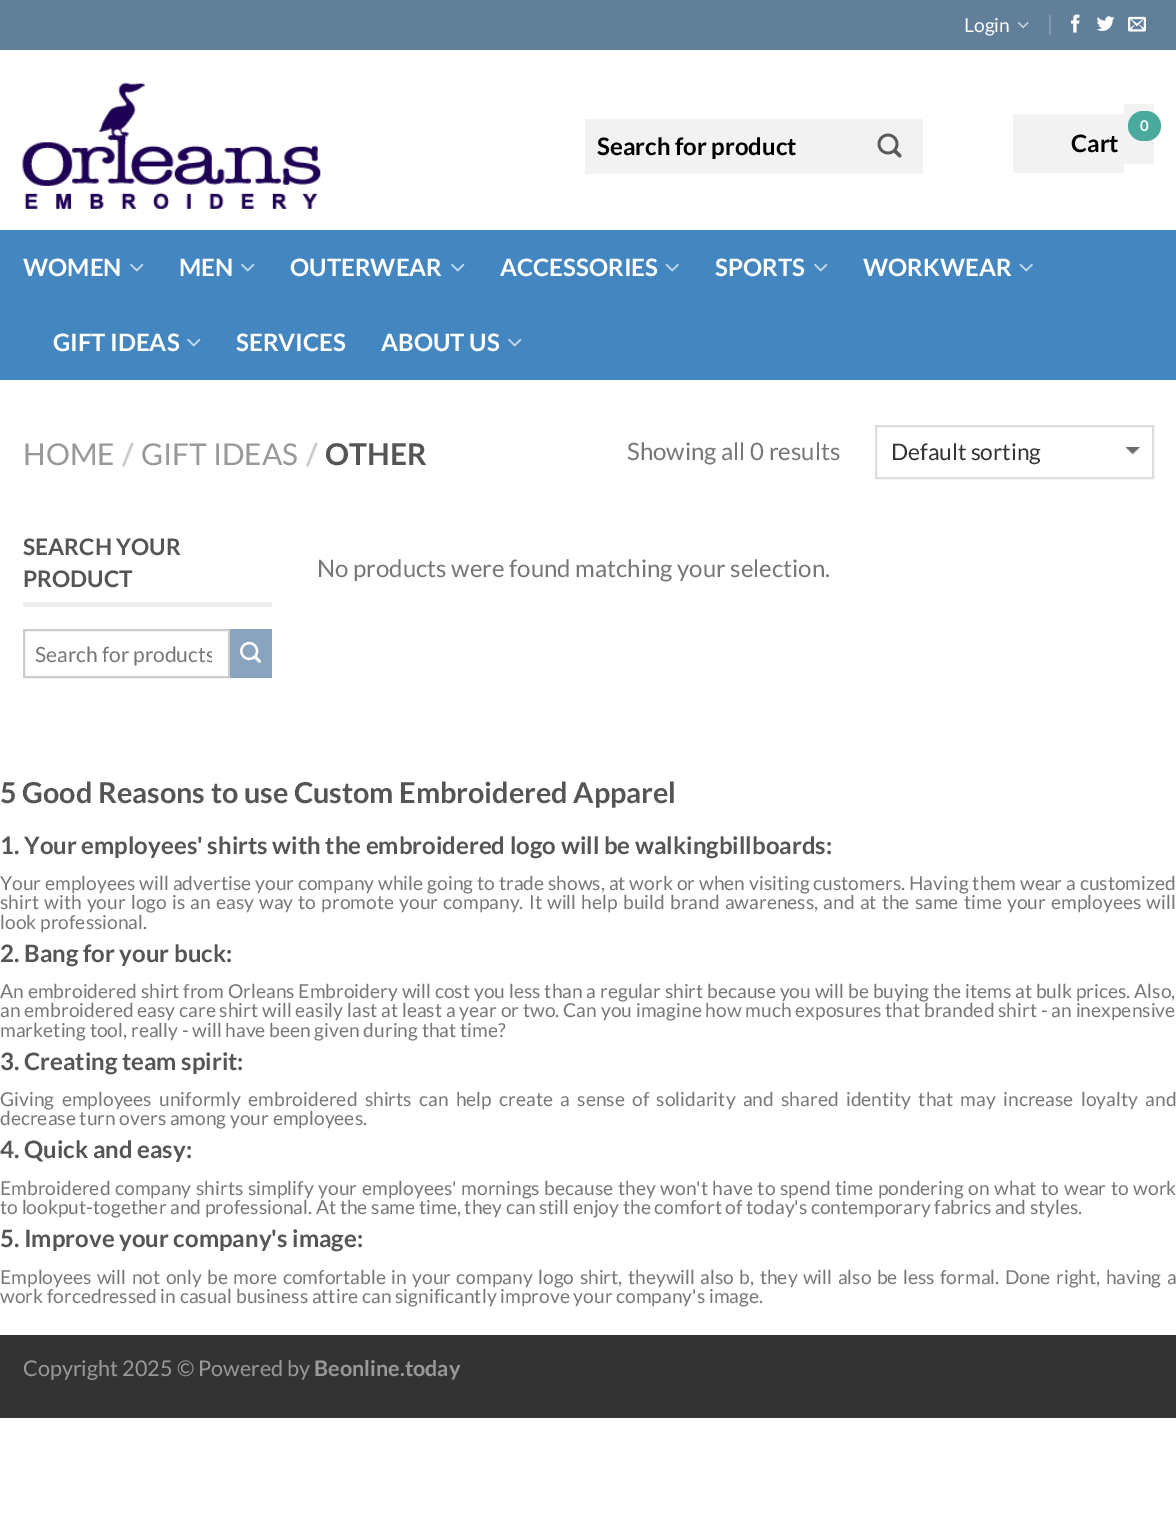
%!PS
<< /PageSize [1176 1540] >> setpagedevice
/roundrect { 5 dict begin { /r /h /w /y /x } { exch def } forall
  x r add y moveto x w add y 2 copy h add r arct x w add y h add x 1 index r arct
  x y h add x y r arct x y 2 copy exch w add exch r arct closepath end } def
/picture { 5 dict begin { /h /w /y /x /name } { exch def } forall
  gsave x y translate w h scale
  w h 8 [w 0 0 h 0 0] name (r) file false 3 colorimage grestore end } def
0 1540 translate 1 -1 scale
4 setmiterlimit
1 setgray
0 0 1176 1540 rectfill
0.384 0.498 0.604 setrgbcolor
0 0 1176 50 rectfill
/Lato-Regular [19.2 0 0 -19.2 0 0] selectfont
1 setgray
964 32 moveto (Login) show
(img1.rgb) 1017 22 12 7 picture
0.506 0.6 0.682 setrgbcolor
1049 15 2 20 rectfill
(img2.rgb) 1071 14 9 19 picture
(img3.rgb) 1096 16 19 15 picture
(img4.rgb) 1128 16 18 16 picture
(img5.rgb) 22 82 299 128 picture
0.949 setgray
585 119 338 55 rectfill
/Lato-Bold [24 0 0 -24 0 0] selectfont
0 setgray
597 155 moveto (Search for product) show
(img6.rgb) 877 133 25 25 picture
0.949 setgray
1013 114 111 59 rectfill
1124 104 30 60 rectfill
0.286 0.667 0.616 setrgbcolor
1128 111 33 30 15 roundrect fill
/Lato-Bold [15 0 0 -15 0 0] selectfont
1 setgray
1140 131 moveto (0) show
/Lato-Bold [24 0 0 -24 0 0] selectfont
0 setgray
1071 152 moveto (Cart) show
0.267 0.525 0.749 setrgbcolor
0 230 1176 150 rectfill
1 setgray
23 276 moveto (WOMEN) show
(img7.rgb) 130 263 14 9 picture
179 276 moveto (MEN) show
(img7.rgb) 241 263 14 9 picture
290 276 moveto (OUTERWEAR) show
(img7.rgb) 451 263 14 9 picture
500 276 moveto (ACCESSORIES) show
(img8.rgb) 665 263 14 9 picture
715 276 moveto (SPORTS) show
(img7.rgb) 814 263 14 9 picture
863 276 moveto (WORKWEAR) show
(img8.rgb) 1019 263 14 9 picture
53 351 moveto (GIFT IDEAS) show
(img7.rgb) 187 338 14 9 picture
236 351 moveto (SERVICES) show
381 351 moveto (ABOUT US) show
(img7.rgb) 508 338 14 9 picture
/Lato-Regular [30 0 0 -30 0 0] selectfont
0.6 setgray
23 465 moveto (HOME) show
/Lato-Bold [30 0 0 -30 0 0] selectfont
0.8 setgray
122 465 moveto (/) show
/Lato-Regular [30 0 0 -30 0 0] selectfont
0.6 setgray
141 465 moveto (GIFT IDEAS) show
/Lato-Bold [30 0 0 -30 0 0] selectfont
0.8 setgray
306 465 moveto (/) show
0.333 setgray
325 465 moveto (OTHER) show
/Lato-Regular [24 0 0 -24 0 0] selectfont
0.467 setgray
627 460 moveto (Showing all 0 results) show
(img9.rgb) 1125 447 16 8 picture
0.867 setgray
2 setlinewidth
876 426 277 52 rectstroke
/Lato-Regular [22.75 0 0 -22.75 0 0] selectfont
0.2 setgray
891 460 moveto (Default sorting) show
0.933 setgray
23 602 249 5 rectfill
/Lato-Bold [22.75 0 0 -22.75 0 0] selectfont
0.333 setgray
23 555 moveto (SEARCH YOUR) show
23 587 moveto (PRODUCT) show
0.8 setgray
24 630 205 47 rectstroke
gsave
35 641 177 25 rectclip
/Lato-Regular [21 0 0 -21 0 0] selectfont
0.467 setgray
35 662 moveto (Search for products) show
grestore
0.537 0.643 0.749 setrgbcolor
230 629 42 49 rectfill
(img10.rgb) 240 641 21 22 picture
/Lato-Regular [24 0 0 -24 0 0] selectfont
0.467 setgray
317 577 moveto (No products were found matching your selection.) show
/Lato-Bold [28.8 0 0 -28.8 0 0] selectfont
0.333 setgray
0 803 moveto (5 Good Reasons to use Custom Embroidered Apparel) show
/Lato-Bold [24 0 0 -24 0 0] selectfont
0 854 moveto (1. Your employees' shirts with the embroidered logo will be walkingbillboards:) show
/Lato-Regular [19.2 0 0 -19.2 0 0] selectfont
0.467 setgray
0 890 moveto 0.2 0 32 (Your employees will advertise your company while going to trade shows, at work or when visiting customers. Having them wear a customized) widthshow
0 909 moveto 1.45 0 32 (shirt with your logo is an easy way to promote your company. It will help build brand awareness, and at the same time your employees will) widthshow
0 929 moveto (look professional.) show
/Lato-Bold [24 0 0 -24 0 0] selectfont
0.333 setgray
0 962 moveto (2. Bang for your buck:) show
/Lato-Regular [19.2 0 0 -19.2 0 0] selectfont
0.467 setgray
0 998 moveto 0.15 0 32 (An embroidered shirt from Orleans Embroidery will cost you less than a regular shirt because you will be buying the items at bulk prices. Also,) widthshow
0 1017 moveto 0.15 0 32 (an embroidered easy care shirt will easily last at least a year or two. Can you imagine how much exposures that branded shirt - an inexpensive) widthshow
0 1037 moveto (marketing tool, really - will have been given during that time?) show
/Lato-Bold [24 0 0 -24 0 0] selectfont
0.333 setgray
0 1070 moveto (3. Creating team spirit:) show
/Lato-Regular [19.2 0 0 -19.2 0 0] selectfont
0.467 setgray
0 1106 moveto 3.6 0 32 (Giving employees uniformly embroidered shirts can help create a sense of solidarity and shared identity that may increase loyalty and) widthshow
0 1125 moveto (decrease turn overs among your employees.) show
/Lato-Bold [24 0 0 -24 0 0] selectfont
0.333 setgray
0 1158 moveto (4. Quick and easy:) show
/Lato-Regular [19.2 0 0 -19.2 0 0] selectfont
0.467 setgray
0 1195 moveto 1 0 32 (Embroidered company shirts simplify your employees' mornings because they won't have to spend time pondering on what to wear to work) widthshow
0 1214 moveto (to lookput-together and professional. At the same time, they can still enjoy the comfort of today's contemporary fabrics and styles.) show
/Lato-Bold [24 0 0 -24 0 0] selectfont
0.333 setgray
0 1247 moveto (5. Improve your company's image:) show
/Lato-Regular [19.2 0 0 -19.2 0 0] selectfont
0.467 setgray
0 1284 moveto 1.7 0 32 (Employees will not only be more comfortable in your company logo shirt, theywill also b, they will also be less formal. Done right, having a) widthshow
0 1303 moveto (work forcedressed in casual business attire can significantly improve your company's image.) show
0.2 setgray
0 1335 1176 83 rectfill
/Lato-Regular [21.6 0 0 -21.6 0 0] selectfont
0.6 setgray
23 1376 moveto (Copyright 2025 © Powered by) show
/Lato-Bold [21.6 0 0 -21.6 0 0] selectfont
314 1376 moveto (Beonline.today) show
showpage
